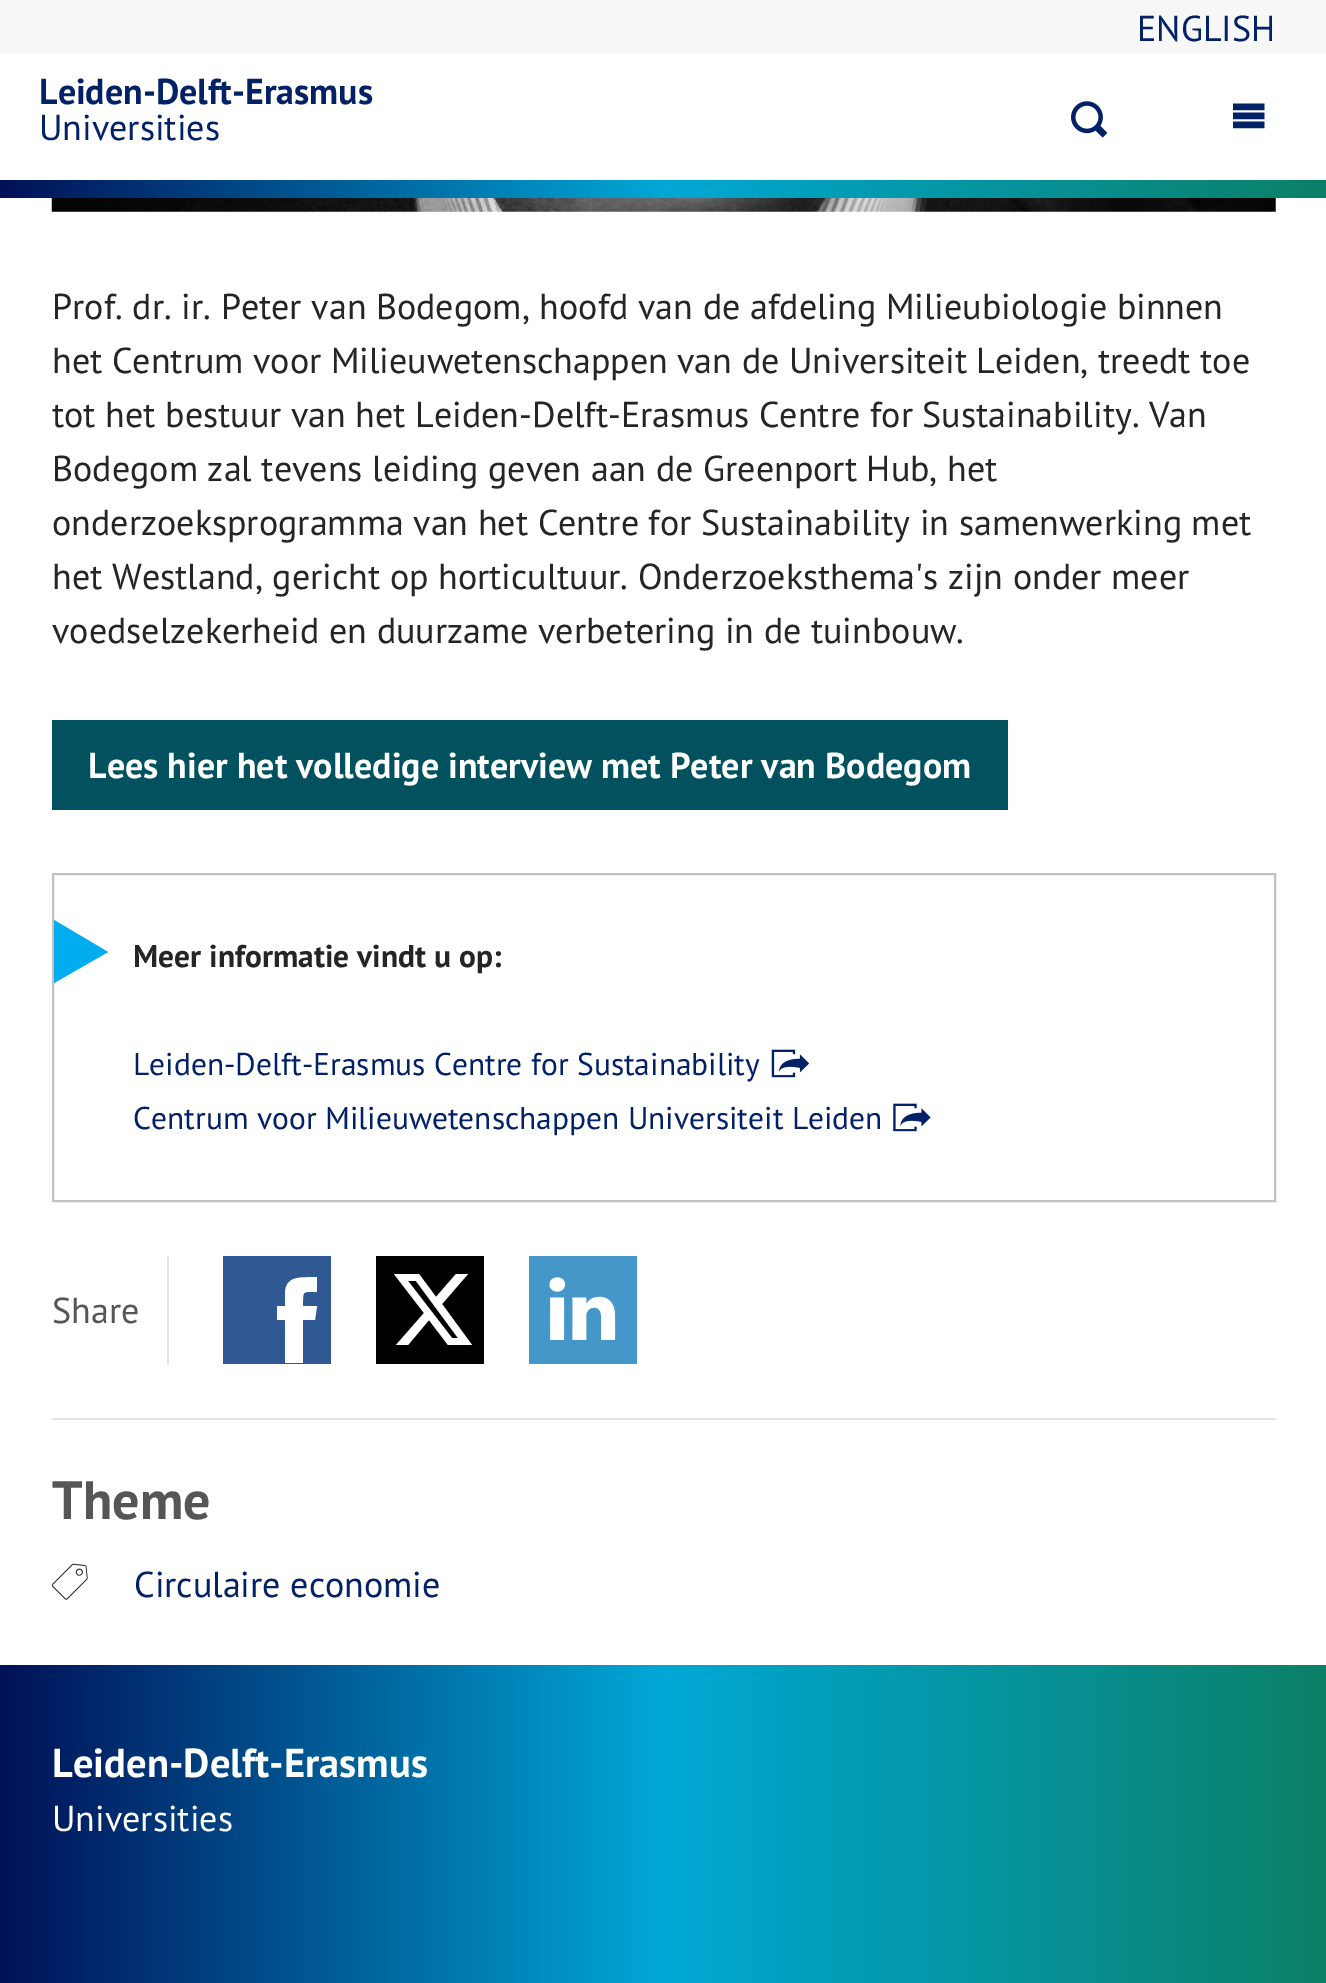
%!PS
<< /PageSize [1326 1983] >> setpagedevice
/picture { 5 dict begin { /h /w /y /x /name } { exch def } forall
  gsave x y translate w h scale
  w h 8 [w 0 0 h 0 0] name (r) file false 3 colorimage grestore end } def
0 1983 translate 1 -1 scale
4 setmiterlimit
1 setgray
0 0 1326 1983 rectfill
0.969 setgray
0 0 1326 54 rectfill
/PTSans-Regular [36 0 0 -36 0 0] selectfont
0.012 0.129 0.404 setrgbcolor
1137 41 moveto (ENGLISH) show
(img1.rgb) 1071 101 36 37 picture
(img2.rgb) 1233 103 32 26 picture
gsave newpath 0 180 moveto 1326 180 lineto 1326 198 lineto 0 198 lineto closepath clip newpath
<< /ShadingType 2 /ColorSpace /DeviceRGB /Coords [0 992 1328 992] /Extend [true true] /Function << /FunctionType 3 /Domain [0 1] /Functions [<< /FunctionType 2 /Domain [0 1] /C0 [0 0.067 0.345] /C1 [0 0.659 0.839] /N 1 >> << /FunctionType 2 /Domain [0 1] /C0 [0 0.659 0.839] /C1 [0.047 0.502 0.404] /N 1 >>] /Bounds [0.5] /Encode [0 1 0 1] >> >> shfill grestore
/PTSans-Bold [36 0 0 -36 0 0] selectfont
39 104 moveto (Leiden-Delft-Erasmus) show
/PTSans-Regular [36 0 0 -36 0 0] selectfont
39 140 moveto (Universities) show
(img3.rgb) 51 198 1225 14 picture
0.145 setgray
52 319 moveto (Prof. dr. ir. Peter van Bodegom, hoofd van de afdeling Milieubiologie binnen) show
52 373 moveto (het Centrum voor Milieuwetenschappen van de Universiteit Leiden, treedt toe) show
52 427 moveto (tot het bestuur van het Leiden-Delft-Erasmus Centre for Sustainability. Van) show
52 481 moveto (Bodegom zal tevens leiding geven aan de Greenport Hub, het) show
52 535 moveto (onderzoeksprogramma van het Centre for Sustainability in samenwerking met) show
52 589 moveto (het Westland, gericht op horticultuur. Onderzoeksthema's zijn onder meer) show
52 643 moveto (voedselzekerheid en duurzame verbetering in de tuinbouw.) show
0.008 0.318 0.369 setrgbcolor
52 720 956 90 rectfill
/PTSans-Bold [36 0 0 -36 0 0] selectfont
1 setgray
88 778 moveto (Lees hier het volledige interview met Peter van Bodegom) show
0.761 setgray
2 setlinewidth
53 874 1222 327 rectstroke
0.004 0.678 0.937 setrgbcolor
newpath 54 983 moveto 54 920 lineto 108 952 lineto closepath fill
/PTSans-Bold [31.5 0 0 -31.5 0 0] selectfont
0.145 setgray
133 967 moveto (Meer informatie vindt u op:) show
/PTSans-Regular [31.5 0 0 -31.5 0 0] selectfont
0.012 0.129 0.404 setrgbcolor
133 1075 moveto (Leiden-Delft-Erasmus Centre for Sustainability) show
(img4.rgb) 771 1049 39 29 picture
133 1129 moveto (Centrum voor Milieuwetenschappen Universiteit Leiden) show
(img5.rgb) 893 1103 38 29 picture
0.894 setgray
52 1418 1224 2 rectfill
167 1256 2 108 rectfill
/PTSans-Regular [36 0 0 -36 0 0] selectfont
0.337 setgray
52 1323 moveto (Share) show
0.188 0.345 0.573 setrgbcolor
223 1256 108 108 rectfill
1 setgray
newpath 285 1294 moveto 285 1306 lineto 277 1306 lineto 277 1320 lineto 285 1320 lineto 285 1363 lineto 303 1363 lineto 303 1320 lineto 315 1320 lineto 317 1306 lineto 303 1306 lineto 303 1290 302 1292 317 1292 curveto 317 1277 lineto 303 1278 285 1274 285 1294 curveto closepath fill
0 setgray
376 1256 108 108 rectfill
1 setgray
newpath 456 1274 moveto 468 1274 lineto 442 1304 lineto 472 1345 lineto 448 1345 lineto 429 1320 lineto 408 1345 lineto 396 1345 lineto 424 1313 lineto 394 1274 lineto 419 1274 lineto 436 1297 lineto closepath 452 1338 moveto 458 1338 lineto 416 1281 lineto 408 1281 lineto closepath fill
0.267 0.592 0.784 setrgbcolor
529 1256 108 108 rectfill
(img6.rgb) 549 1277 67 63 picture
/PTSans-Bold [54 0 0 -54 0 0] selectfont
0.337 setgray
52 1519 moveto (Theme) show
(img7.rgb) 51 1563 37 37 picture
/PTSans-Regular [36 0 0 -36 0 0] selectfont
0.012 0.129 0.404 setrgbcolor
134 1597 moveto (Circulaire economie) show
gsave newpath 0 1665 moveto 1326 1665 lineto 1326 1983 lineto 0 1983 lineto closepath clip newpath
<< /ShadingType 2 /ColorSpace /DeviceRGB /Coords [0 992 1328 992] /Extend [true true] /Function << /FunctionType 3 /Domain [0 1] /Functions [<< /FunctionType 2 /Domain [0 1] /C0 [0 0.067 0.345] /C1 [0 0.659 0.839] /N 1 >> << /FunctionType 2 /Domain [0 1] /C0 [0 0.659 0.839] /C1 [0.047 0.502 0.404] /N 1 >>] /Bounds [0.5] /Encode [0 1 0 1] >> >> shfill grestore
/PTSans-Bold [40.5 0 0 -40.5 0 0] selectfont
1 setgray
52 1777 moveto (Leiden-Delft-Erasmus) show
/PTSans-Regular [36 0 0 -36 0 0] selectfont
52 1831 moveto (Universities) show
showpage
